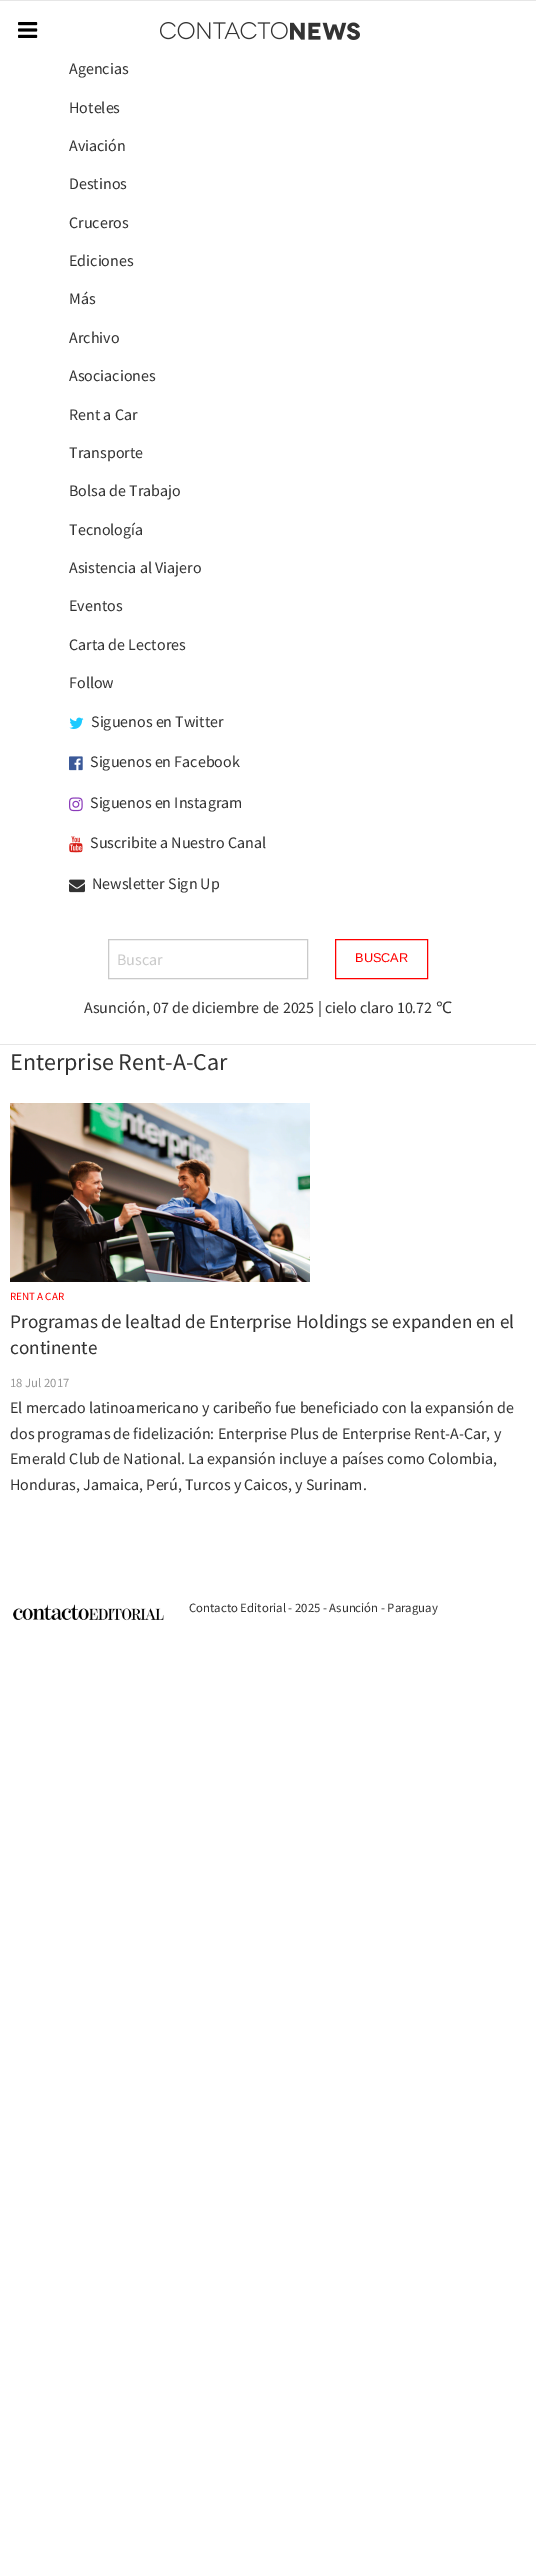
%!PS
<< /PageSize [536 2568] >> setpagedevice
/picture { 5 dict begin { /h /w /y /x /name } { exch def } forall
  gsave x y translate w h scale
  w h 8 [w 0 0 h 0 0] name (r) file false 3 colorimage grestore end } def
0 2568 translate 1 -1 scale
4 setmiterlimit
1 setgray
0 0 536 2568 rectfill
0.902 setgray
0 0 536 1 rectfill
0 1044 536 1 rectfill
(img1.rgb) 18 22 20 16 picture
(img2.rgb) 160 22 200 18 picture
/SourceSansPro-Regular [16 0 0 -16 0 0] selectfont
0.2 setgray
69 74 moveto (Agencias) show
69 113 moveto (Hoteles) show
69 151 moveto (Aviación) show
69 189 moveto (Destinos) show
69 228 moveto (Cruceros) show
69 266 moveto (Ediciones) show
69 304 moveto (Más) show
69 343 moveto (Archivo) show
69 381 moveto (Asociaciones) show
69 420 moveto (Rent a Car) show
69 458 moveto (Transporte) show
69 496 moveto (Bolsa de Trabajo) show
69 535 moveto (Tecnología) show
69 573 moveto (Asistencia al Viajero) show
69 611 moveto (Eventos) show
69 650 moveto (Carta de Lectores) show
69 688 moveto (Follow) show
(img3.rgb) 69 717 15 12 picture
91 727 moveto (Siguenos en Twitter) show
(img4.rgb) 69 756 14 15 picture
90 767 moveto (Siguenos en Facebook) show
(img5.rgb) 69 797 14 15 picture
90 808 moveto (Siguenos en Instagram) show
(img6.rgb) 69 836 14 17 picture
90 848 moveto (Suscribite a Nuestro Canal) show
(img7.rgb) 69 879 16 14 picture
92 889 moveto (Newsletter Sign Up) show
0.792 setgray
108.5 939.5 199 39 rectstroke
117 965 moveto (Buscar) show
1 0 0 setrgbcolor
335.5 939.5 92 39 rectstroke
/LiberationSans-Regular [12.75 0 0 -12.75 0 0] selectfont
355 962 moveto (BUSCAR) show
/SourceSansPro-Regular [16 0 0 -16 0 0] selectfont
0.2 setgray
84 1013 moveto (Asunción, 07 de diciembre de 2025 | cielo claro 10.72) show
/NotoSans-Regular [16 0 0 -16 0 0] selectfont
436 1013 moveto (℃) show
/SourceSansPro-Regular [24 0 0 -24 0 0] selectfont
10 1070 moveto (Enterprise Rent-A-Car) show
(img8.rgb) 10 1103 300 179 picture
/SourceSansPro-Regular [11 0 0 -11 0 0] selectfont
1 0 0 setrgbcolor
10 1300 moveto (RENT A CAR) show
/SourceSansPro-Regular [19.2 0 0 -19.2 0 0] selectfont
0.2 setgray
10 1328 moveto (Programas de lealtad de Enterprise Holdings se expanden en el) show
10 1354 moveto (continente) show
/SourceSansPro-Regular [12.75 0 0 -12.75 0 0] selectfont
0.6 setgray
10 1387 moveto (18 Jul 2017) show
/SourceSansPro-Regular [16 0 0 -16 0 0] selectfont
0.2 setgray
10 1413 moveto (El mercado latinoamericano y caribeño fue beneficiado con la expansión de) show
10 1439 moveto (dos programas de fidelización: Enterprise Plus de Enterprise Rent-A-Car, y) show
10 1464 moveto (Emerald Club de National. La expansión incluye a países como Colombia,) show
10 1490 moveto (Honduras, Jamaica, Perú, Turcos y Caicos, y Surinam.) show
(img9.rgb) 13 1604 151 17 picture
/SourceSansPro-Regular [12.75 0 0 -12.75 0 0] selectfont
189 1612 moveto (Contacto Editorial - 2025 - Asunción - Paraguay) show
showpage
